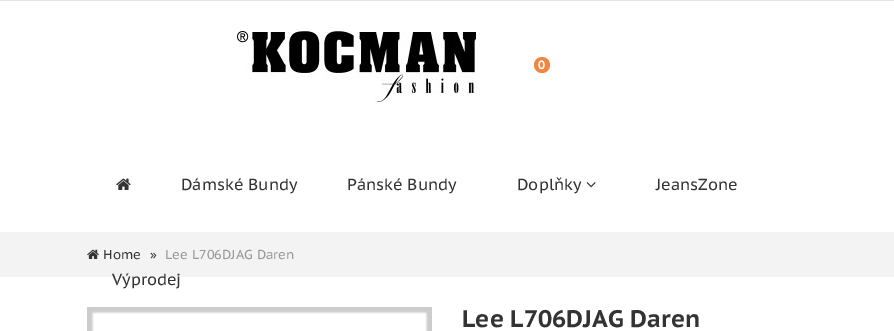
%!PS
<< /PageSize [894 331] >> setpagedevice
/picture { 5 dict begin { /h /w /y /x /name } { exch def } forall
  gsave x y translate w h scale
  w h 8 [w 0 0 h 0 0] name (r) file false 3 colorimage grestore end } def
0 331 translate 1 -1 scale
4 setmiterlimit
1 setgray
0 0 894 331 rectfill
0.898 setgray
0 0 894 1 rectfill
(img1.rgb) 237 31 240 71 picture
0.937 0.529 0.263 setrgbcolor
newpath 542 65 8 0 360 arc closepath fill
/PTSansCaption-Bold [12 0 0 -12 0 0] selectfont
1 setgray
538 69 moveto (0) show
(img2.rgb) 116 178 15 12 picture
/PTSansCaption-Regular [16 0 0 -16 0 0] selectfont
0.2 setgray
181 190 moveto (Dámské Bundy) show
347 190 moveto (Pánské Bundy) show
517 190 moveto (Doplňky) show
(img3.rgb) 586 182 10 6 picture
656 190 moveto (JeansZone) show
0.953 setgray
0 232 894 45 rectfill
0.2 setgray
112 285 moveto (Výprodej) show
(img4.rgb) 87 249 12 10 picture
/PTSansCaption-Regular [13 0 0 -13 0 0] selectfont
103 259 moveto (Home) show
150 259 moveto (») show
0.6 setgray
165 259 moveto (Lee L706DJAG Daren) show
(img5.rgb) 87 307 345 24 picture
/PTSansCaption-Bold [24 0 0 -24 0 0] selectfont
0.2 setgray
462 327 moveto (Lee L706DJAG Daren) show
showpage
